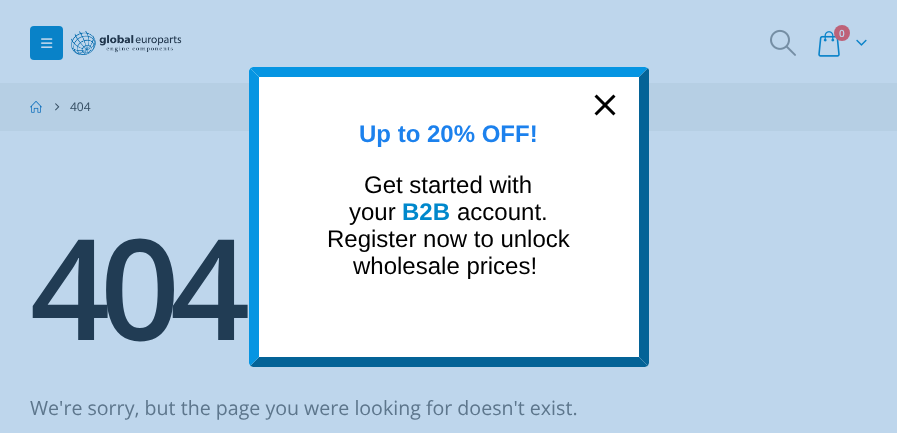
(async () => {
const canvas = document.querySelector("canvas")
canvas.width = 897
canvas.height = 433
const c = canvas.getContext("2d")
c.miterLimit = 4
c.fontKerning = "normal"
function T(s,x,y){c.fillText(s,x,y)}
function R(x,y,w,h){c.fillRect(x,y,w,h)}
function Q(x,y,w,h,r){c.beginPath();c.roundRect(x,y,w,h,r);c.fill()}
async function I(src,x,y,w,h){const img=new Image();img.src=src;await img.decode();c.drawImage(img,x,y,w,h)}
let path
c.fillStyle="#bed6ec"
R(0,0,897,433)
c.fillStyle="#0982c8"
Q(30,26,33,34,4)
await I("1.png",41,38,12,10)
await I("2.png",71,30,111,25)
await I("3.png",770,29,26,27)
await I("4.png",818,31,22,26)
c.fillStyle="#be6278"
c.beginPath()
c.arc(842,33,8,0,7)
c.fill()
c.font="600 10px Open Sans"
c.fillStyle="#bed6ec"
T("0",839,37)
await I("5.png",856,39,11,7)
c.fillStyle="#b6cfe4"
R(0,83,897,48)
await I("6.png",30,101,12,12)
await I("7.png",55,103,5,8)
c.font="12px Open Sans"
c.fillStyle="#324b60"
T("404",70,111)
c.letterSpacing="-10px"
c.font="600 140px Open Sans"
c.fillStyle="#213c54"
T("404",30,340)
c.letterSpacing="0px"
c.font="19.6px Open Sans"
c.fillStyle="#5d768c"
T("We're sorry, but the page you were looking for doesn't exist.",30,415)
c.fillStyle="#fff"
Q(249,67,400,300,4)
c.fillStyle="#0695e2"
path = new Path2D("M253 67l-3 1l9 9h380l9-9l-3-1z")
c.fill(path)
c.fillStyle="#046397"
path = new Path2D("M649 363v-293l-1-2l-9 9v280l9 9z")
c.fill(path)
path = new Path2D("M253 367h392l3-1l-9-9h-380l-9 9z")
c.fill(path)
c.fillStyle="#0695e2"
path = new Path2D("M259 77l-9-9c0 1-1 2-1 3v292c0 1 1 2 1 3l9-9z")
c.fill(path)
await I("8.png",594,94,22,22)
c.font="bold 24px Liberation Sans"
c.fillStyle="#1c81ed"
T("Up to 20% OFF!",359,142)
c.font="24px Liberation Sans"
c.fillStyle="#000"
T("Get started with",364,193)
T("your",349,220)
c.font="bold 24px Liberation Sans"
c.fillStyle="#08c"
T("B2B",402,220)
c.font="24px Liberation Sans"
c.fillStyle="#000"
T("account.",457,220)
T("Register now to unlock",327,247)
T("wholesale prices!",353,274)
})()
